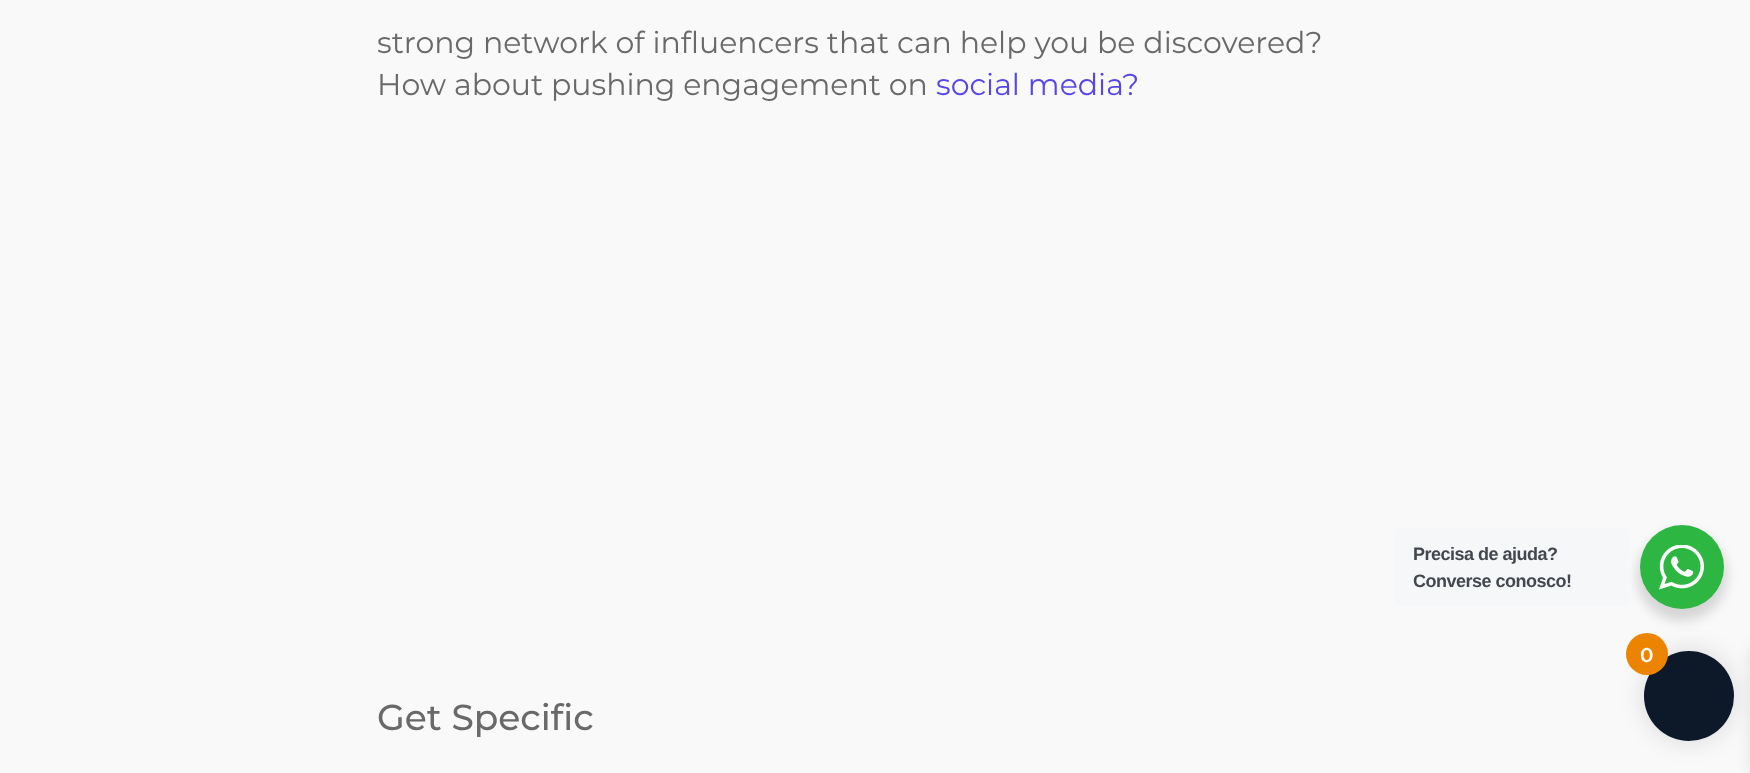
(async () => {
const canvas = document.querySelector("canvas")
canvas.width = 1750
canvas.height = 773
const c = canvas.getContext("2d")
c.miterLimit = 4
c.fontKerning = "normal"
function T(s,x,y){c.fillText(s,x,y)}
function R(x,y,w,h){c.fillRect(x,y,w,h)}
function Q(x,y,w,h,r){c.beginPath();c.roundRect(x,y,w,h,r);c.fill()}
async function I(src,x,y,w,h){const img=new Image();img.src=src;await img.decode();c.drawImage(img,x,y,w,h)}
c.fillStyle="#f9f9f9"
R(0,0,1750,773)
c.font="30px Montserrat"
c.fillStyle="#696969"
T("strong network of influencers that can help you be discovered?",377,53)
T("How about pushing engagement on",377,95)
c.fillStyle="#5747e4"
T("social media?",936,95)
c.font="500 36px Montserrat"
c.fillStyle="#696969"
T("Get Specific",377,730)
c.fillStyle="#0000001a"
c.filter="blur(11px)"
c.beginPath()
c.roundRect(1641,648,96,96,48)
c.fill()
c.filter="none"
c.filter="blur(7.5px)"
c.beginPath()
c.rect(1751,647,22,126)
c.fill()
c.filter="none"
c.fillStyle="#0d1929"
c.beginPath()
c.arc(1689,696,45,0,7)
c.fill()
c.fillStyle="#ed8400"
c.beginPath()
c.arc(1647,654,21,0,7)
c.fill()
c.fillStyle="#00000024"
c.filter="blur(6px)"
c.beginPath()
c.roundRect(1637,531,90,90,45)
c.fill()
c.filter="none"
c.fillStyle="#f5f7f9"
Q(1395,528,234,78,6)
c.letterSpacing="-0.5px"
c.font="bold 18px Liberation Sans"
c.fillStyle="#43474e"
T("Precisa de ajuda?",1413,560)
T("Converse conosco!",1413,587)
c.fillStyle="#2db742"
c.beginPath()
c.arc(1682,567,42,0,7)
c.fill()
await I("1.png",1659,545,45,45)
c.letterSpacing="0px"
c.font="600 20px Montserrat"
c.fillStyle="#f9f9f9"
T("0",1640,662)
})()
